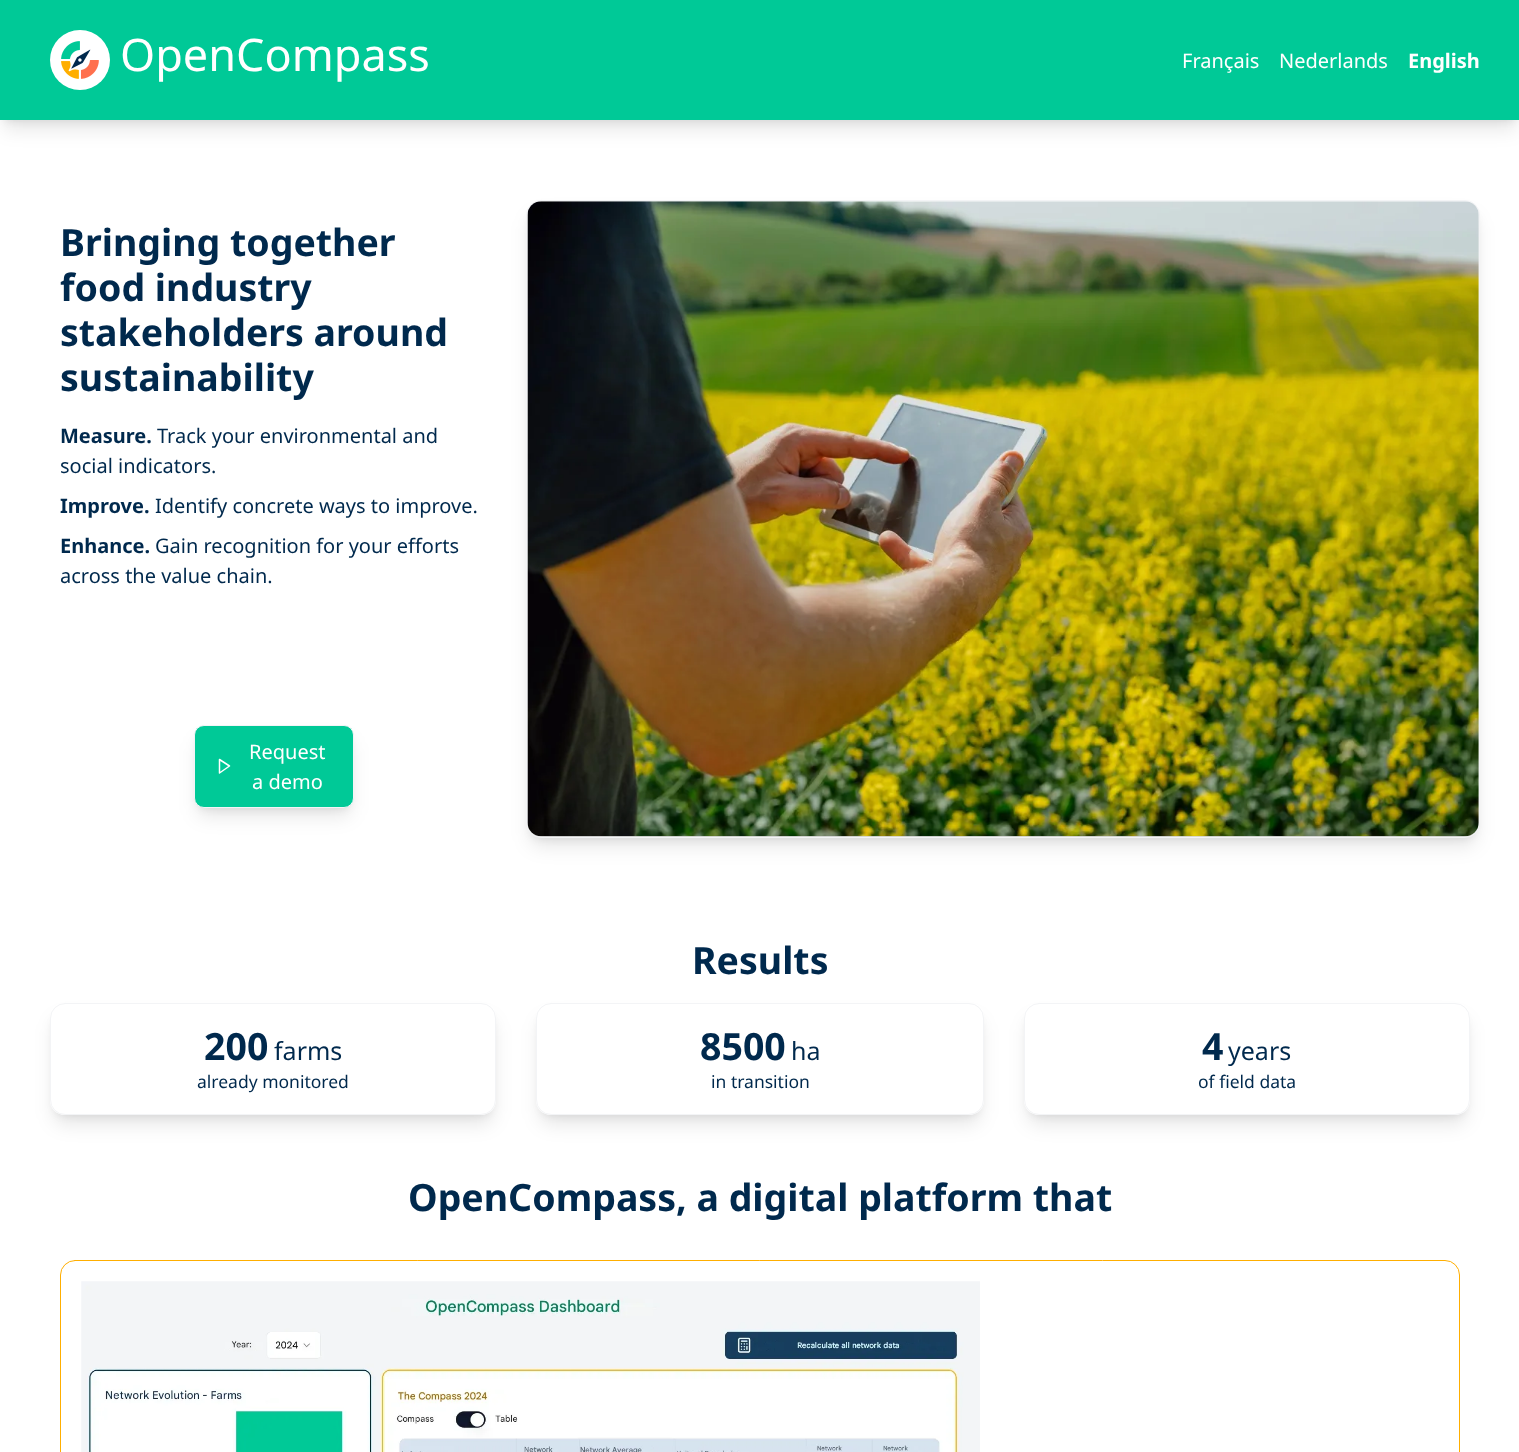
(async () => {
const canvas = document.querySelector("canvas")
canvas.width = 1519
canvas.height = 1452
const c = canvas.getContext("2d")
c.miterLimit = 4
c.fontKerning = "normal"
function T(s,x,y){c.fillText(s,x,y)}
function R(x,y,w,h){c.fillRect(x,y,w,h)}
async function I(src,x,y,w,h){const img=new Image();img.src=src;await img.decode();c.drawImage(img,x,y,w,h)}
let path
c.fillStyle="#fff"
R(0,0,1519,1452)
c.fillStyle="#0000001a"
c.filter="blur(4px)"
c.beginPath()
c.rect(5,10,1510,110)
c.fill()
c.filter="none"
c.filter="blur(9.5px)"
c.beginPath()
c.rect(4,16,1512,113)
c.fill()
c.filter="none"
c.fillStyle="#00c997"
R(0,0,1519,120)
c.fillStyle="#fff"
c.beginPath()
c.arc(80,60,30,0,7)
c.fill()
await I("1.png",61,41,38,38)
c.font="45px Noto Sans"
T("OpenCompass",120,71)
c.font="20px Noto Sans"
T("Français",1182,68)
T("Nederlands",1279,68)
c.font="bold 20px Noto Sans"
T("English",1408,68)
c.font="bold 37.5px Noto Sans"
c.fillStyle="#00294d"
T("Bringing together",60,256)
T("food industry",60,301)
T("stakeholders around",60,346)
T("sustainability",60,391)
c.font="bold 20px Noto Sans"
T("Measure.",60,443)
c.font="20px Noto Sans"
T("Track your environmental and",157,443)
T("social indicators.",60,473)
c.font="bold 20px Noto Sans"
T("Improve.",60,513)
c.font="20px Noto Sans"
T("Identify concrete ways to improve.",155,513)
c.font="bold 20px Noto Sans"
T("Enhance.",60,553)
c.font="20px Noto Sans"
T("Gain recognition for your efforts",155,553)
T("across the value chain.",60,583)
c.fillStyle="#0000001a"
c.filter="blur(4px)"
c.beginPath()
c.roundRect(199,735,150,73,5)
c.fill()
c.filter="none"
c.filter="blur(9.5px)"
c.beginPath()
c.roundRect(198,741,152,75,6)
c.fill()
c.filter="none"
c.fillStyle="#00c997"
c.beginPath()
c.roundRect(194.5,725.5,159,82,9.5)
c.fill()
c.strokeStyle="#f3f4f6"
c.stroke()
c.fillStyle="#fff"
T("Request",249,759)
path = new Path2D("M219.5 759.5l10 6.5l-10 7z")
c.strokeStyle="#fff"
c.lineWidth=1.5
c.lineCap="round"
c.lineJoin="round"
c.stroke(path)
T("a demo",252,789)
c.fillStyle="#0000001a"
c.filter="blur(4px)"
c.beginPath()
c.roundRect(531,210,944,628,10)
c.fill()
c.filter="none"
c.filter="blur(9.5px)"
c.beginPath()
c.roundRect(530,216,946,630,11)
c.fill()
c.filter="none"
c.beginPath()
c.roundRect(526.5,200.5,953,637,14.5)
c.strokeStyle="#f3f4f6"
c.lineWidth=1
c.lineJoin="miter"
c.stroke()
await I("2.png",527,201,952,636)
c.font="bold 37.5px Noto Sans"
c.fillStyle="#00294d"
T("Results",692,974)
c.save()
path = new Path2D("M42 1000h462v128h-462zm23 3h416c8.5 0 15 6.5 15 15v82c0 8.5-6.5 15-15 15h-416c-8.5 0-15-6.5-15-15v-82c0-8.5 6.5-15 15-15z")
c.clip(path,"evenodd")
c.fillStyle="#0000001a"
c.filter="blur(4px)"
c.beginPath()
c.roundRect(55,1013,436,102,10)
c.fill()
c.filter="none"
c.restore()
c.save()
path = new Path2D("M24 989h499v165h-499zm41 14h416c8.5 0 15 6.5 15 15v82c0 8.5-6.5 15-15 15h-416c-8.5 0-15-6.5-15-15v-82c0-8.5 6.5-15 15-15z")
c.clip(path,"evenodd")
c.fillStyle="#0000001a"
c.filter="blur(9.5px)"
c.beginPath()
c.roundRect(54,1019,439,105,11)
c.fill()
c.filter="none"
c.restore()
c.beginPath()
c.roundRect(50.5,1003.5,445,111,14.5)
c.stroke()
T("200",204,1060)
c.font="25px Noto Sans"
T("farms",274,1060)
c.font="17.5px Noto Sans"
T("already monitored",197,1088)
c.save()
path = new Path2D("M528 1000h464v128h-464zm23 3h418c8.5 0 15 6.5 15 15v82c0 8.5-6.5 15-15 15h-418c-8.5 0-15-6.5-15-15v-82c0-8.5 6.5-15 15-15z")
c.clip(path,"evenodd")
c.fillStyle="#0000001a"
c.filter="blur(4px)"
c.beginPath()
c.roundRect(541,1013,438,102,10)
c.fill()
c.filter="none"
c.restore()
c.save()
path = new Path2D("M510 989h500v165h-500zm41 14h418c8.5 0 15 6.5 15 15v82c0 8.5-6.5 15-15 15h-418c-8.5 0-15-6.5-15-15v-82c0-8.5 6.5-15 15-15z")
c.clip(path,"evenodd")
c.fillStyle="#0000001a"
c.filter="blur(9.5px)"
c.beginPath()
c.roundRect(540,1019,440,105,11)
c.fill()
c.filter="none"
c.restore()
c.beginPath()
c.roundRect(536.5,1003.5,447,111,14.5)
c.stroke()
c.font="bold 37.5px Noto Sans"
T("8500",700,1060)
c.font="25px Noto Sans"
T("ha",791,1060)
c.font="17.5px Noto Sans"
T("in transition",711,1088)
c.save()
path = new Path2D("M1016 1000h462v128h-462zm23 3h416c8.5 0 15 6.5 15 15v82c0 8.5-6.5 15-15 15h-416c-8.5 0-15-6.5-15-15v-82c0-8.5 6.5-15 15-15z")
c.clip(path,"evenodd")
c.fillStyle="#0000001a"
c.filter="blur(4px)"
c.beginPath()
c.roundRect(1029,1013,436,102,10)
c.fill()
c.filter="none"
c.restore()
c.save()
path = new Path2D("M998 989h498v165h-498zm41 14h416c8.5 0 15 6.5 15 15v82c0 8.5-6.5 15-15 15h-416c-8.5 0-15-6.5-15-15v-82c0-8.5 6.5-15 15-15z")
c.clip(path,"evenodd")
c.fillStyle="#0000001a"
c.filter="blur(9.5px)"
c.beginPath()
c.roundRect(1028,1019,438,105,11)
c.fill()
c.filter="none"
c.restore()
c.beginPath()
c.roundRect(1024.5,1003.5,445,111,14.5)
c.stroke()
c.font="bold 37.5px Noto Sans"
T("4",1202,1060)
c.font="25px Noto Sans"
T("years",1228,1060)
c.font="17.5px Noto Sans"
T("of field data",1198,1088)
c.font="bold 37.5px Noto Sans"
T("OpenCompass, a digital platform that",408,1211)
c.beginPath()
c.roundRect(60.5,1260.5,1399,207,14.5)
c.strokeStyle="#ffae00"
c.stroke()
await I("3.png",81,1281,899,171)
})()
